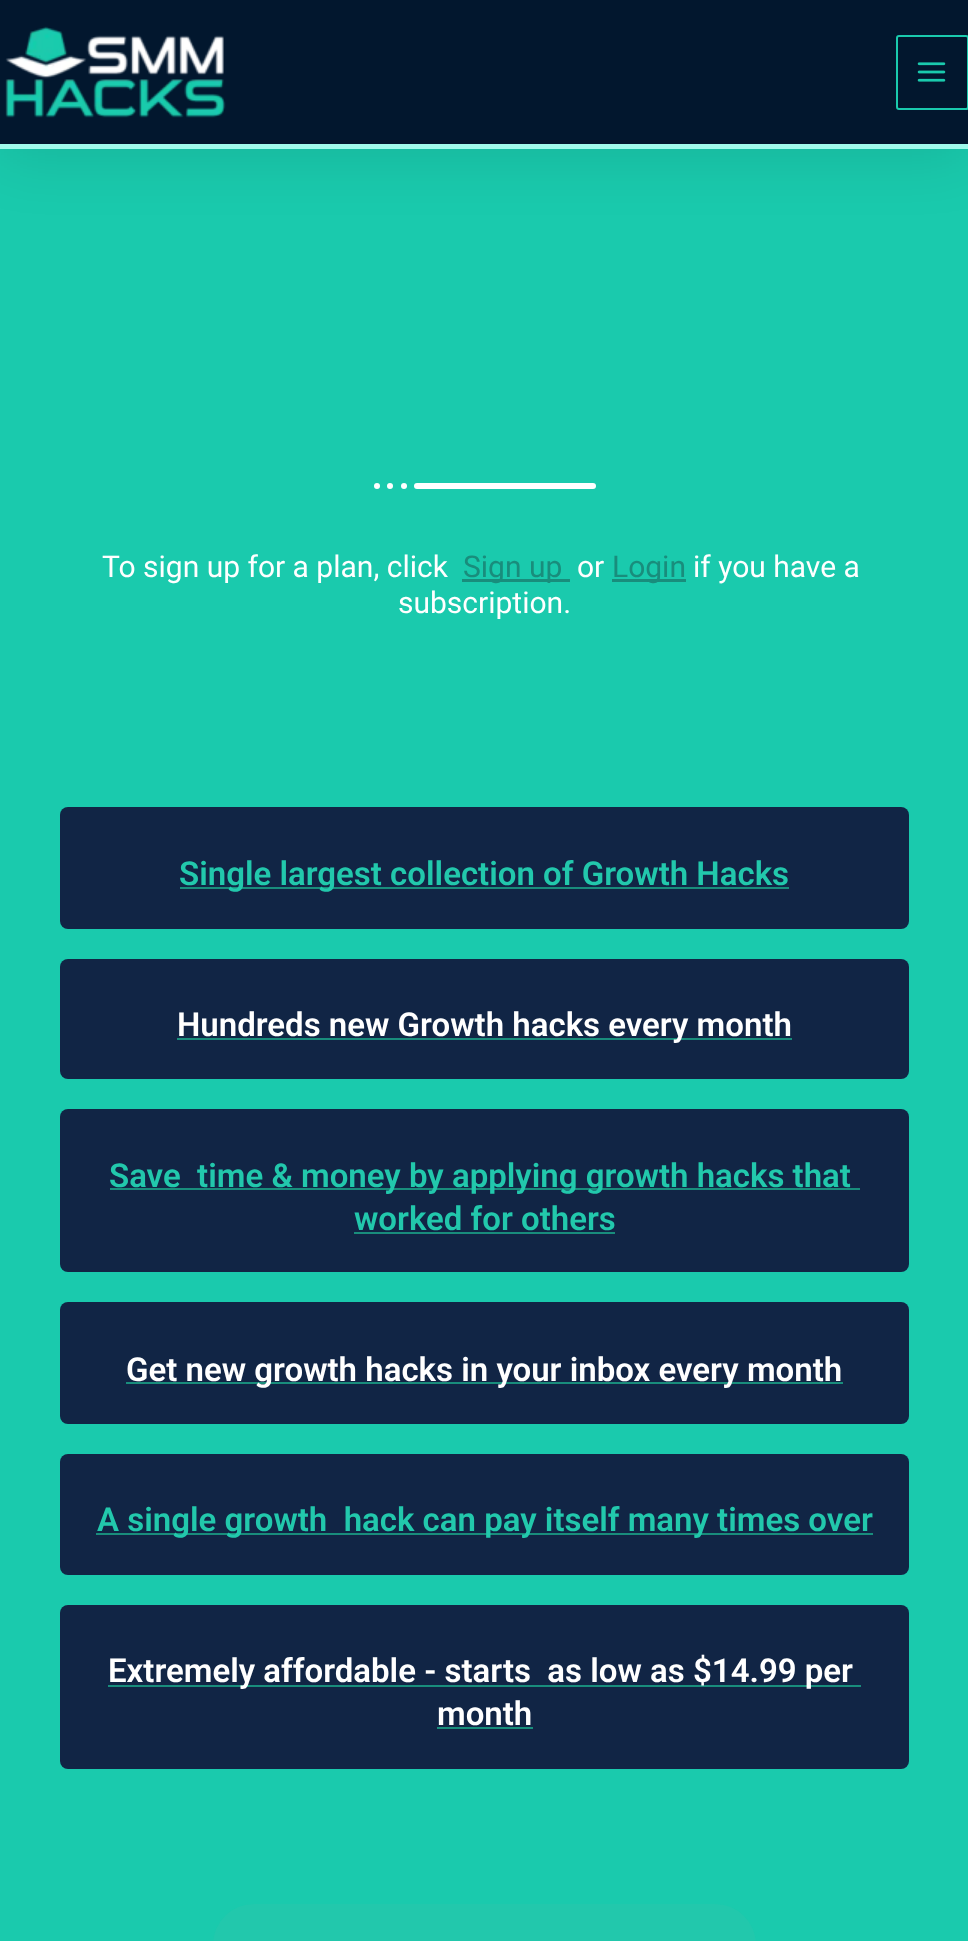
(async () => {
const canvas = document.querySelector("canvas")
canvas.width = 968
canvas.height = 1941
const c = canvas.getContext("2d")
c.miterLimit = 4
c.fontKerning = "normal"
function T(s,x,y){c.fillText(s,x,y)}
function R(x,y,w,h){c.fillRect(x,y,w,h)}
function Q(x,y,w,h,r){c.beginPath();c.roundRect(x,y,w,h,r);c.fill()}
async function I(src,x,y,w,h){const img=new Image();img.src=src;await img.decode();c.drawImage(img,x,y,w,h)}
c.fillStyle="#1acaad"
R(0,0,968,1941)
c.fillStyle="#0000001a"
c.filter="blur(30px)"
c.beginPath()
c.rect(0,9,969,149)
c.fill()
c.filter="none"
c.fillStyle="#02172e"
R(0,0,968,144)
c.fillStyle="#a0faeb"
R(0,144,968,5)
await I("1.png",5,26,221,92)
c.beginPath()
c.roundRect(897,36,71,73,2)
c.strokeStyle="#1acaad"
c.lineWidth=2
c.stroke()
await I("2.png",917,62,29,20)
c.fillStyle="#fff"
Q(414,483,182,6,3)
c.beginPath()
c.arc(404,486,3,0,7)
c.fill()
c.beginPath()
c.arc(390,486,3,0,7)
c.fill()
c.beginPath()
c.arc(377,486,3,0,7)
c.fill()
c.font="30px Roboto"
T("To sign up for a plan, click",102,577)
c.fillStyle="#198d7c"
R(462,579,108,3)
T("Sign up",463,577)
c.fillStyle="#fff"
T("or",577,577)
c.fillStyle="#198d7c"
R(612,579,74,3)
T("Login",612,577)
c.fillStyle="#fff"
T("if you have a",693,577)
T("subscription.",398,613)
c.fillStyle="#112545"
Q(60,807,849,122,8)
c.fillStyle="#198d7c"
R(180,887,609,2)
c.font="600 33px Roboto"
c.fillStyle="#22c8ac"
T("Single largest collection of Growth Hacks",179,885)
c.fillStyle="#112545"
Q(60,959,849,120,8)
c.fillStyle="#198d7c"
R(177,1038,615,2)
c.fillStyle="#fff"
T("Hundreds new Growth hacks every month",177,1036)
c.fillStyle="#112545"
Q(60,1109,849,163,8)
c.fillStyle="#198d7c"
R(110,1188,750,2)
c.fillStyle="#22c8ac"
T("Save  time & money by applying growth hacks that",109,1187)
T("worked for others",354,1230)
c.fillStyle="#198d7c"
R(354,1232,261,2)
c.fillStyle="#112545"
Q(60,1302,849,122,8)
c.fillStyle="#198d7c"
R(126,1382,717,2)
c.fillStyle="#fff"
T("Get new growth hacks in your inbox every month",126,1381)
c.fillStyle="#112545"
Q(60,1454,849,121,8)
c.fillStyle="#198d7c"
R(96,1533,777,2)
c.fillStyle="#22c8ac"
T("A single growth  hack can pay itself many times over",97,1531)
c.fillStyle="#112545"
Q(60,1605,849,164,8)
c.fillStyle="#198d7c"
R(108,1685,753,2)
c.fillStyle="#fff"
T("Extremely affordable - starts  as low as $14.99 per",108,1682)
T("month",437,1725)
c.fillStyle="#198d7c"
R(437,1727,96,2)
c.fillStyle="#22c8ac"
Q(213,1904,543,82,45)
})()
